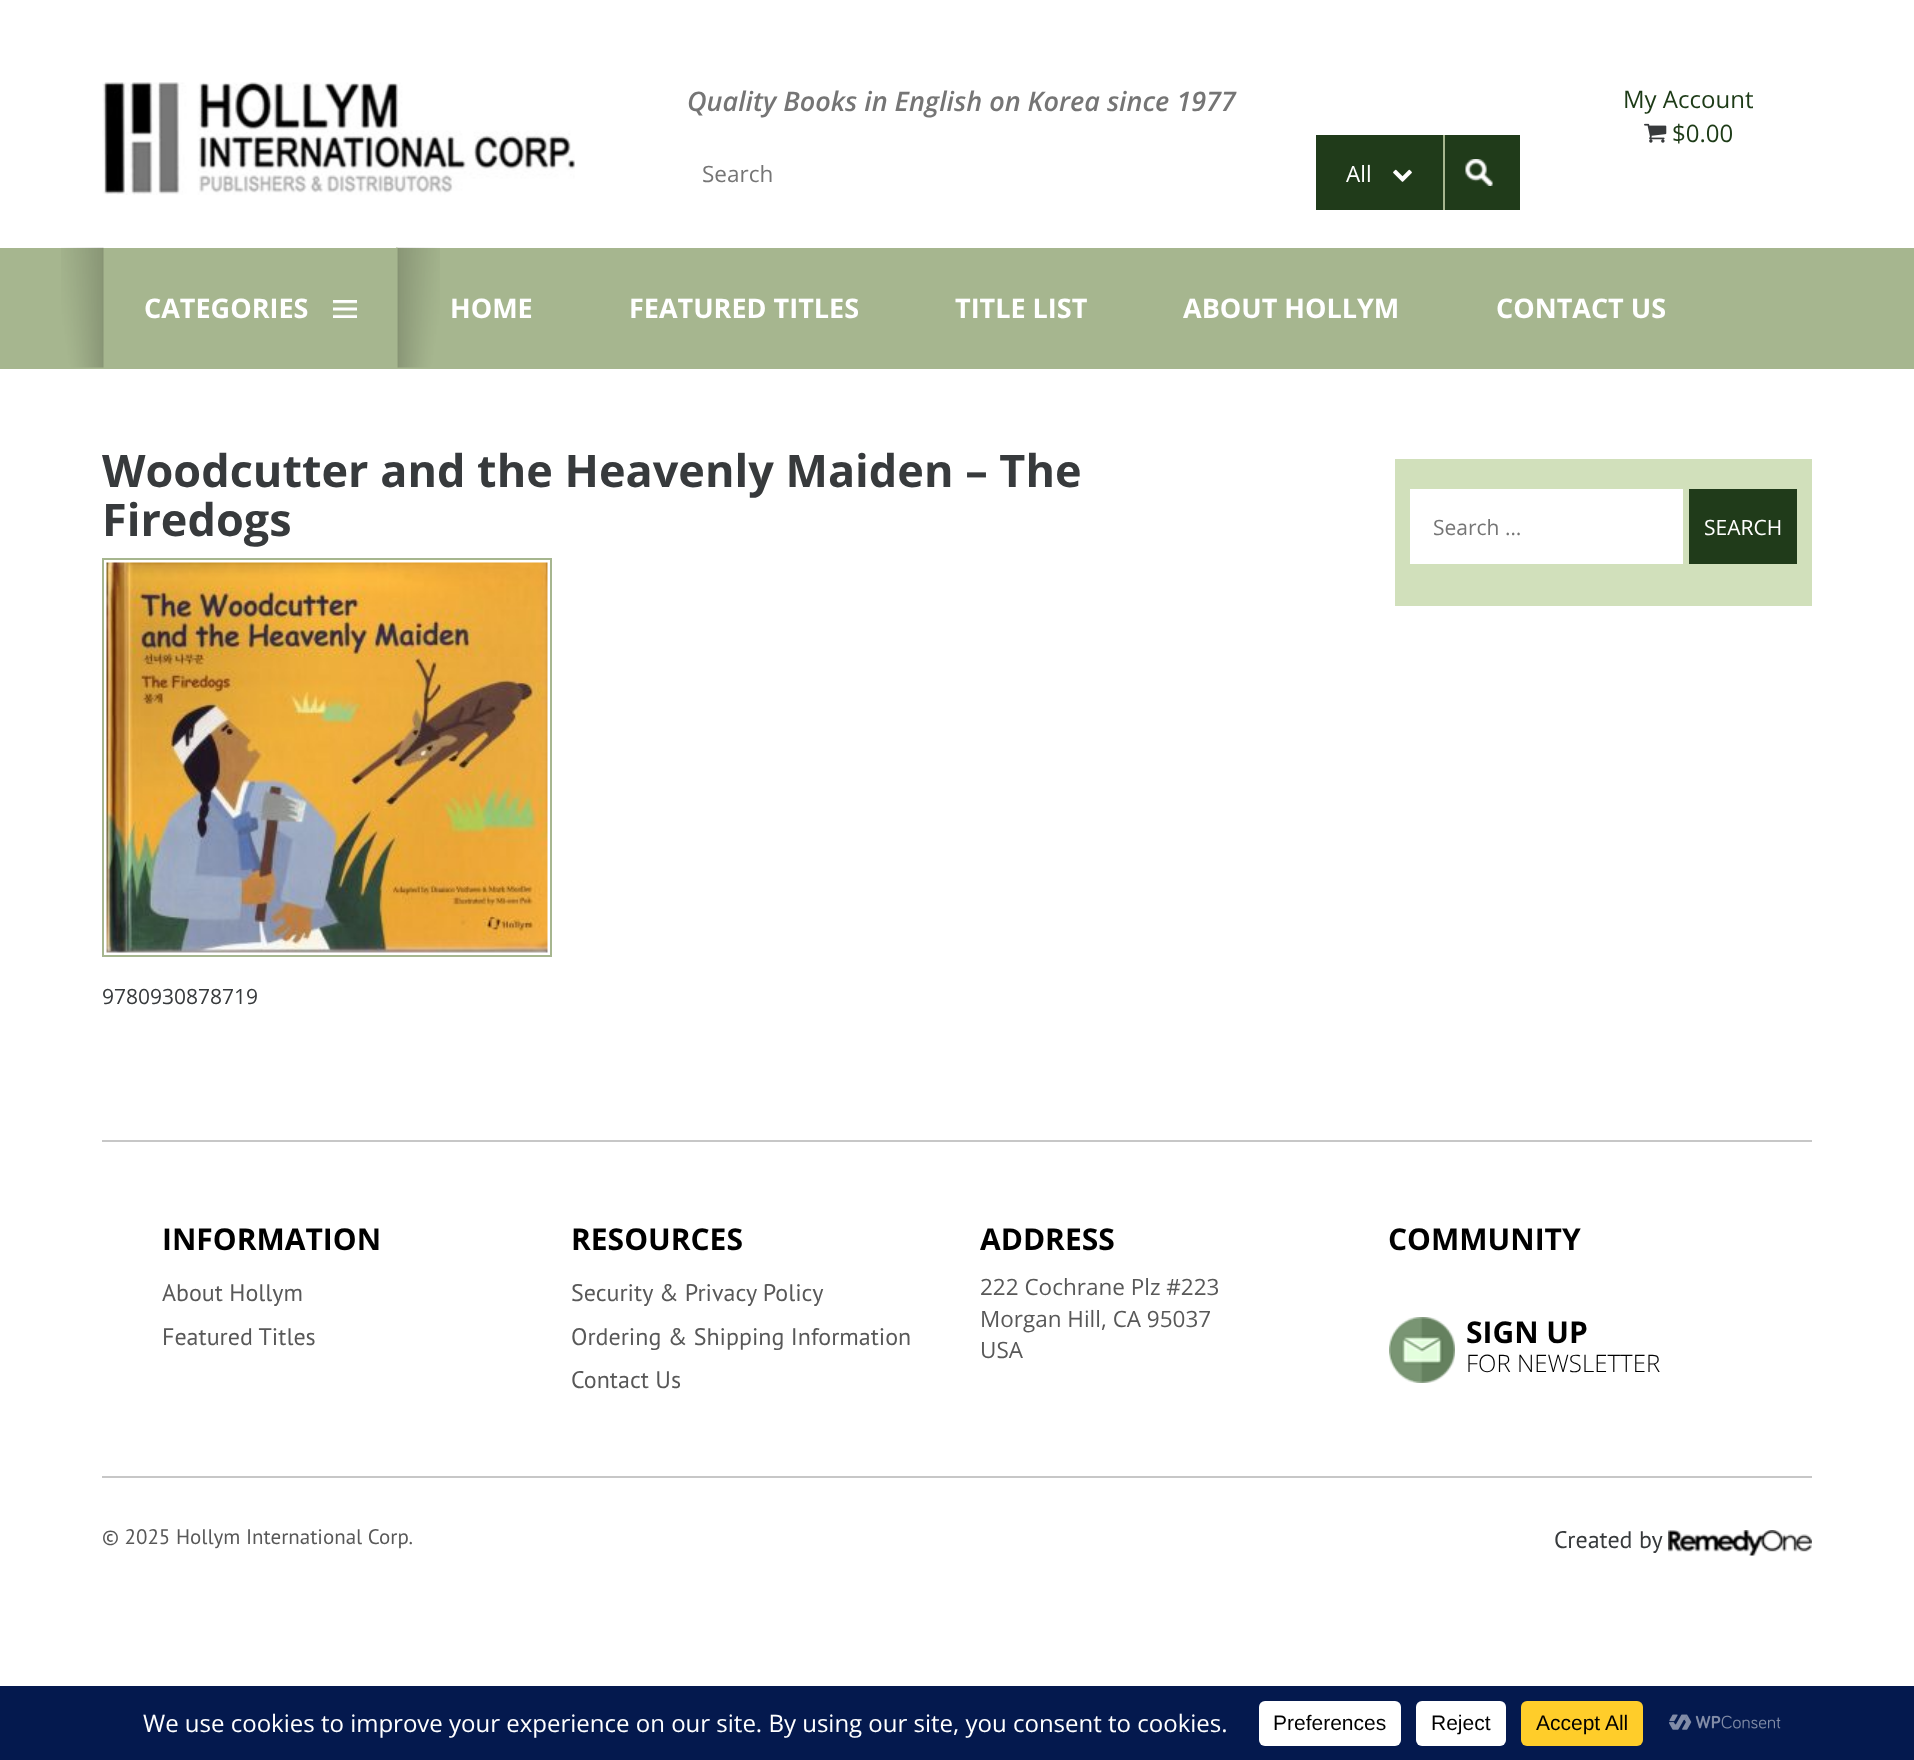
(async () => {
const canvas = document.querySelector("canvas")
canvas.width = 1914
canvas.height = 1760
const c = canvas.getContext("2d")
c.miterLimit = 4
c.fontKerning = "normal"
function T(s,x,y){c.fillText(s,x,y)}
function R(x,y,w,h){c.fillRect(x,y,w,h)}
function Q(x,y,w,h,r){c.beginPath();c.roundRect(x,y,w,h,r);c.fill()}
async function I(src,x,y,w,h){const img=new Image();img.src=src;await img.decode();c.drawImage(img,x,y,w,h)}
c.fillStyle="#fff"
R(0,0,1914,1760)
await I("1.png",102,82,473,113)
c.font="italic 600 27px Open Sans"
c.fillStyle="#757575"
T("Quality Books in English on Korea since 1977",687,111)
c.font="22.5px Open Sans"
T("Search",702,182)
c.fillStyle="#203b1a"
R(1316,135,127,75)
c.fillStyle="#a6b68f"
R(1443,135,2,75)
c.fillStyle="#fff"
T("All",1346,182)
await I("2.png",1393,169,19,13)
c.fillStyle="#203b1a"
R(1445,135,75,75)
await I("3.png",1465,159,28,27)
c.font="24px Open Sans"
c.fillStyle="#1d3b17"
T("My Account",1623,108)
await I("4.png",1644,123,23,20)
T("$0.00",1672,142)
c.fillStyle="#a6b68f"
R(0,248,1914,121)
await I("5.png",333,300,24,18)
await I("6.png",61,247,43,121)
c.font="bold 27px Open Sans"
c.fillStyle="#fff"
T("CATEGORIES",144,318)
await I("7.png",396,247,44,121)
T("HOME",450,318)
T("FEATURED TITLES",629,318)
T("TITLE LIST",955,318)
T("ABOUT HOLLYM",1183,318)
T("CONTACT US",1496,318)
c.font="bold 45px Open Sans"
c.fillStyle="#373a3c"
T("Woodcutter and the Heavenly Maiden – The",102,487)
T("Firedogs",102,536)
c.strokeStyle="#a6b68f"
c.lineWidth=2
c.strokeRect(103,559,448,397)
await I("8.png",106,562,442,391)
c.font="21px Open Sans"
T("9780930878719",102,1004)
c.fillStyle="#d1e0bb"
R(1395,459,417,147)
c.fillStyle="#fff"
R(1410,489,273,75)
c.fillStyle="#757575"
T("Search …",1433,535)
c.fillStyle="#203b1a"
R(1689,489,108,75)
c.fillStyle="#fff"
T("SEARCH",1704,535)
c.fillStyle="#c7c7c7"
R(102,1140,1710,2)
R(102,1476,1710,2)
c.font="bold 30px Open Sans"
c.fillStyle="#000"
T("INFORMATION",162,1250)
c.font="24px PT Sans"
c.fillStyle="#585858"
T("About Hollym",162,1301)
T("Featured Titles",162,1345)
c.font="bold 30px Open Sans"
c.fillStyle="#000"
T("RESOURCES",571,1250)
c.font="24px PT Sans"
c.fillStyle="#585858"
T("Security & Privacy Policy",571,1301)
T("Ordering & Shipping Information",571,1345)
T("Contact Us",571,1388)
c.font="bold 30px Open Sans"
c.fillStyle="#000"
T("ADDRESS",980,1250)
c.font="22.5px Open Sans"
c.fillStyle="#585858"
T("222 Cochrane Plz #223",980,1295)
T("Morgan Hill, CA 95037",980,1327)
T("USA",980,1358)
c.font="bold 30px Open Sans"
c.fillStyle="#000"
T("COMMUNITY",1388,1250)
await I("9.png",1389,1317,66,66)
T("SIGN UP",1466,1343)
c.font="300 24px Open Sans"
T("FOR NEWSLETTER",1466,1372)
c.font="21px PT Sans"
c.fillStyle="#585858"
T("© 2025 Hollym International Corp.",102,1544)
c.font="24px PT Sans"
c.fillStyle="#373a3c"
T("Created by",1554,1548)
await I("10.png",1668,1530,144,26)
c.fillStyle="#04194e"
R(0,1686,1914,74)
c.font="24px Open Sans"
c.fillStyle="#fff"
T("We use cookies to improve your experience on our site. By using our site, you consent to cookies.",143,1732)
Q(1259,1701,142,45,6)
c.font="21px Liberation Sans"
c.fillStyle="#000"
T("Preferences",1273,1730)
c.fillStyle="#fff"
Q(1416,1701,90,45,6)
c.fillStyle="#000"
T("Reject",1431,1730)
c.fillStyle="#ffcd2a"
Q(1521,1701,122,45,6)
c.fillStyle="#000"
T("Accept All",1536,1730)
await I("11.png",1669,1714,112,16)
})()
